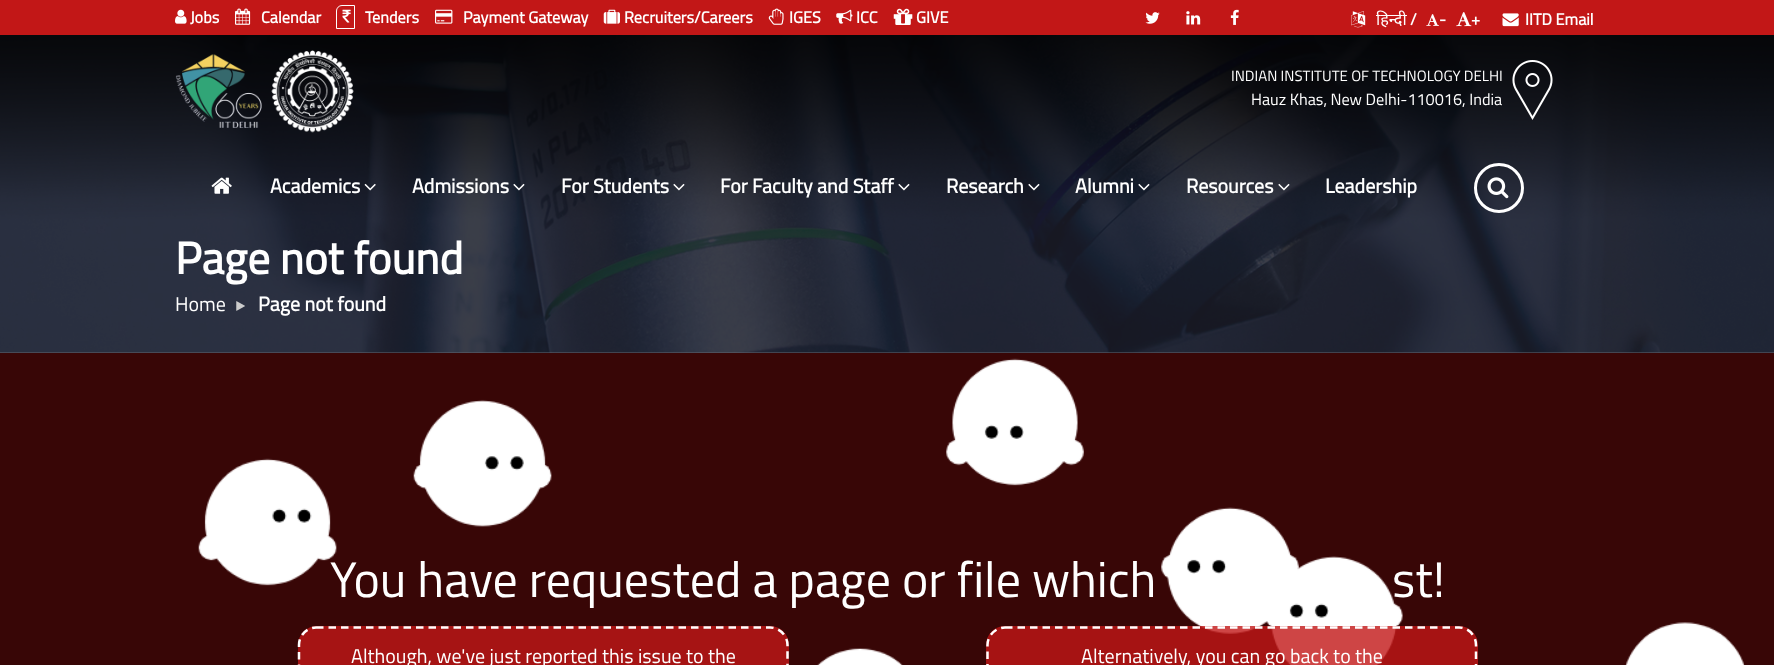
(async () => {
const canvas = document.querySelector("canvas")
canvas.width = 1774
canvas.height = 665
const c = canvas.getContext("2d")
c.miterLimit = 4
c.fontKerning = "normal"
function T(s,x,y){c.fillText(s,x,y)}
function R(x,y,w,h){c.fillRect(x,y,w,h)}
function Q(x,y,w,h,r){c.beginPath();c.roundRect(x,y,w,h,r);c.fill()}
async function I(src,x,y,w,h){const img=new Image();img.src=src;await img.decode();c.drawImage(img,x,y,w,h)}
let path
c.fillStyle="#64656f"
R(0,0,1774,665)
c.fillStyle="#c21717"
R(0,0,1774,35)
await I("1.png",175,9,12,15)
c.font="bold 16.25px Titillium Web"
c.fillStyle="#fff"
T("Jobs",190,23)
await I("2.png",235,8,16,17)
T("Calendar",261,23)
c.beginPath()
c.roundRect(336.5,5.5,18,23,[5.5,0,0,0])
c.strokeStyle="#fff"
c.stroke()
await I("3.png",342,9,9,14)
T("Tenders",365,23)
await I("4.png",435,9,18,15)
T("Payment Gateway",463,23)
await I("5.png",603,9,17,15)
T("Recruiters/Careers",624,23)
await I("6.png",768,8,16,17)
T("IGES",789,23)
await I("7.png",836,9,17,15)
T("ICC",856,23)
await I("8.png",893,8,20,17)
T("GIVE",916,23)
await I("9.png",1145,12,15,12)
await I("10.png",1186,11,15,14)
await I("11.png",1230,9,9,16)
await I("12.png",1351,11,15,17)
c.font="16.25px Noto Sans"
T("हिन्दी",1376,25)
c.font="bold 16.25px Titillium Web"
T("/",1410,25)
await I("13.png",1426,14,13,12)
T("-",1439,25)
await I("14.png",1456,12,16,15)
T("+",1471,25)
await I("15.png",1502,13,17,14)
T("IITD Email",1525,25)
await I("28.png",0,35,1774,318)
await I("16.png",175,54,87,74)
await I("17.png",271,50,83,83)
c.font="15px Titillium Web"
T("INDIAN INSTITUTE OF TECHNOLOGY DELHI",1231,81)
await I("18.png",1512,60,41,60)
c.font="16.25px Titillium Web"
T("Hauz Khas, New Delhi-110016, India",1251,105)
await I("19.png",211,177,21,17)
c.font="bold 20px Titillium Web"
T("Academics",270,193)
await I("20.png",364,183,12,8)
T("Admissions",412,193)
await I("21.png",513,183,12,8)
T("For Students",561,193)
await I("22.png",673,183,12,8)
T("For Faculty and Staff",720,193)
await I("23.png",898,183,12,8)
T("Research",946,193)
await I("24.png",1028,183,12,8)
T("Alumni",1075,193)
await I("25.png",1138,183,12,8)
T("Resources",1186,193)
await I("26.png",1278,183,12,8)
T("Leadership",1325,193)
c.beginPath()
c.arc(1499,188,23.5,0,7)
c.lineWidth=3
c.stroke()
await I("27.png",1487,177,22,22)
c.font="bold 45px Titillium Web"
T("Page not found",175,274)
c.font="20px Titillium Web"
T("Home",175,311)
await I("29.png",236,301,9,10)
c.font="bold 20px Titillium Web"
T("Page not found",258,311)
c.fillStyle="#380606"
R(0,353,1774,312)
await I("30.png",198,358,1547,307)
c.font="50px Titillium Web"
c.fillStyle="#fff"
T("You have requested a page or file which",330,597)
T("st!",1392,597)
c.fillStyle="#a61414"
Q(298,626,491,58,19)
path = new Path2D("M316 627.5h454c9.5 0 17.5 8 17.5 17.5v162.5c0 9.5-8 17.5-17.5 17.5h-454c-9.5 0-17-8-17-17.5v-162.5c0-9.5 7.5-17.5 17-17.5z")
c.lineWidth=2.5
c.setLineDash([7.5,5])
c.stroke(path)
c.font="20px Titillium Web"
c.fillStyle="#fff"
T("Although, we've just reported this issue to the",351,663)
c.fillStyle="#c21717cc"
Q(986,626,492,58,19)
path = new Path2D("M1005 627.5h454c9.5 0 17 8 17 17.5v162.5c0 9.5-7.5 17.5-17 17.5h-454c-9.5 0-17.5-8-17.5-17.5v-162.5c0-9.5 8-17.5 17.5-17.5z")
c.stroke(path)
c.fillStyle="#fff"
T("Alternatively, you can go back to the",1081,663)
})()
